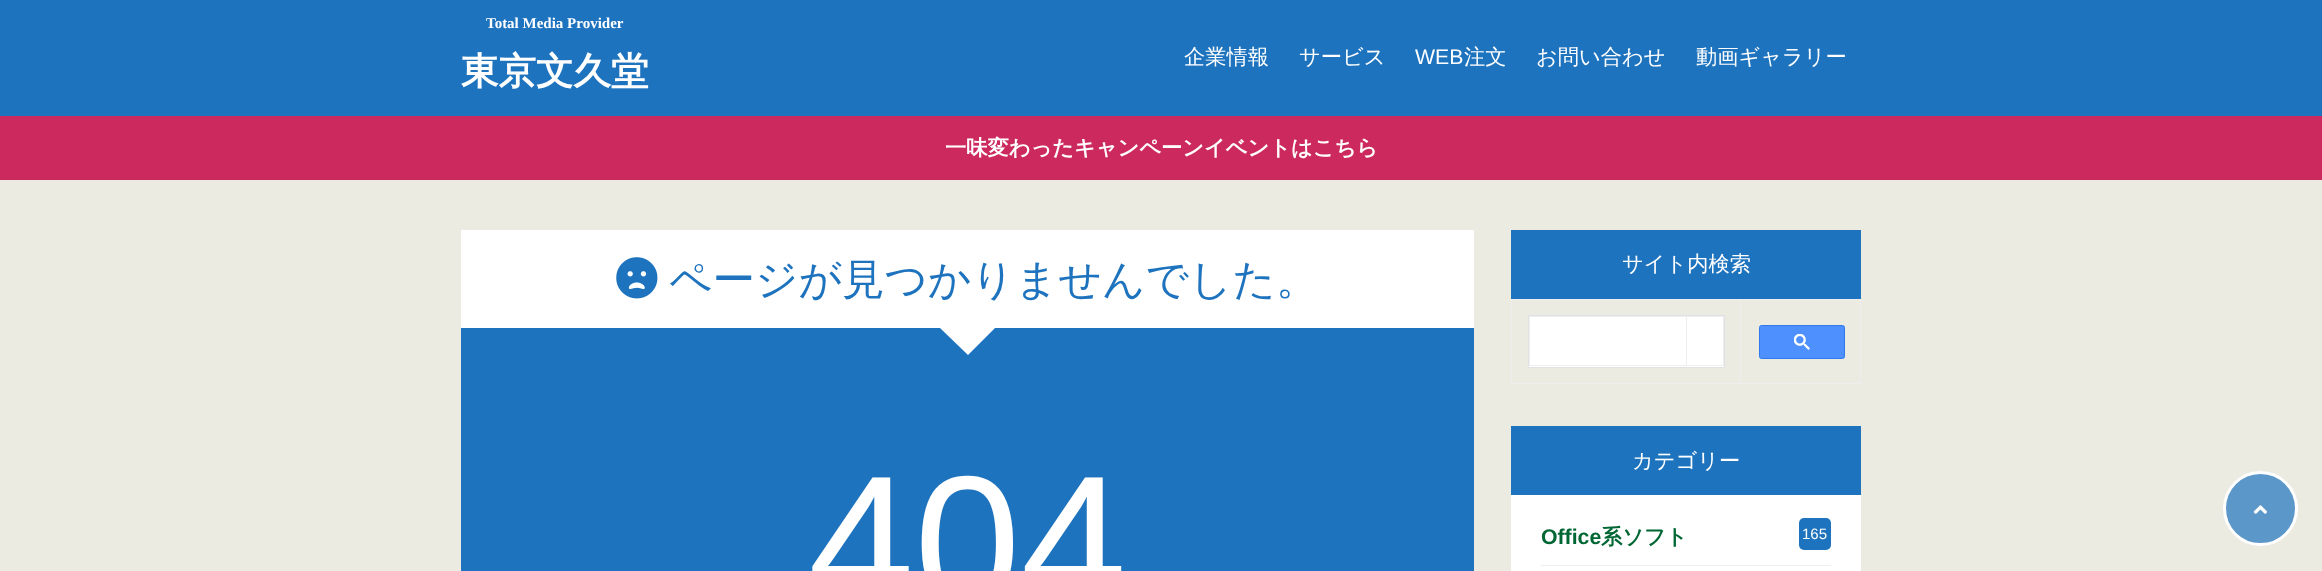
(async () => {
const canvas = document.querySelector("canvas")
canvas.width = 2322
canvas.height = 571
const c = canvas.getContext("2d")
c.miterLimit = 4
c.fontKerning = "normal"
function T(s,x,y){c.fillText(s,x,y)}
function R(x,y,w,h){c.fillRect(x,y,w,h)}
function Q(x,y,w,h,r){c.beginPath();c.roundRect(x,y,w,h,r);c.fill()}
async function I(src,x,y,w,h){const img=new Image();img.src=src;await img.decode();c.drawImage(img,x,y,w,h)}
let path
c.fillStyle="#ecebe1"
R(0,0,2322,571)
c.fillStyle="#1e73be"
R(0,0,2322,116)
c.font="bold 15px Liberation Serif"
c.fillStyle="#fff"
T("Total Media Provider",486,28)
c.font="bold 37.5px WenQuanYi Zen Hei"
T("東京文久堂",461,84)
c.font="500 21.25px WenQuanYi Zen Hei"
T("企業情報",1184,64)
T("サービス",1299,64)
c.font="21.25px Liberation Sans"
T("WEB",1415,64)
c.font="500 21.25px WenQuanYi Zen Hei"
T("注文",1464,64)
T("お問い合わせ",1536,64)
T("動画ギャラリー",1696,64)
c.fillStyle="#cc295f"
R(0,116,2322,64)
c.font="bold 21.25px WenQuanYi Zen Hei"
c.fillStyle="#fff"
T("一味変わったキャンペーンイベントはこちら",945,155)
R(461,230,1013,98)
await I("1.png",616,257,42,42)
c.font="500 42.5px WenQuanYi Zen Hei"
c.fillStyle="#1e73be"
T("ページが見つかりませんでした。",669,294)
R(461,328,1013,243)
c.fillStyle="#fff"
path = new Path2D("M940 328h55l-27 27z")
c.fill(path)
c.font="191px Liberation Sans"
T("404",808,609)
c.fillStyle="#1e73be"
R(1511,230,350,69)
c.font="500 21.25px WenQuanYi Zen Hei"
c.fillStyle="#fff"
T("サイト内検索",1622,271)
c.fillStyle="#eee"
R(1740,299,121,1)
R(1860,299,1,85)
R(1740,383,121,1)
R(1740,299,1,85)
R(1511,299,230,1)
R(1511,383,230,1)
R(1511,299,1,85)
c.fillStyle="#fff"
R(1529,317,195,50)
c.strokeStyle="#dfe1e5"
c.strokeRect(1528.5,315.5,196,52)
c.fillStyle="#eee"
R(1529,316,195,1)
R(1723,316,1,50)
R(1529,365,195,1)
R(1529,316,1,50)
R(1686,316,1,50)
c.fillStyle="#4d90fe"
c.beginPath()
c.roundRect(1759.5,325.5,85,33,2)
c.fill()
c.strokeStyle="#3079ed"
c.stroke()
await I("2.png",1794,334,16,16)
c.fillStyle="#1e73be"
R(1511,426,350,69)
c.fillStyle="#fff"
T("カテゴリー",1632,468)
R(1511,495,350,76)
c.fillStyle="#eee"
R(1541,565,290,1)
c.font="bold 21.25px Liberation Sans"
c.fillStyle="#063"
T("Office",1541,544)
c.font="bold 21.25px WenQuanYi Zen Hei"
T("系ソフト",1601,544)
c.fillStyle="#1e73be"
Q(1799,518,32,32,5)
c.font="15px Liberation Sans"
c.fillStyle="#fff"
T("165",1802,539)
c.fillStyle="#5c97c9"
c.beginPath()
c.arc(2260.5,508.5,36,0,7)
c.fill()
c.strokeStyle="#fff"
c.lineWidth=3
c.stroke()
await I("3.png",2253,505,14,9)
})()
